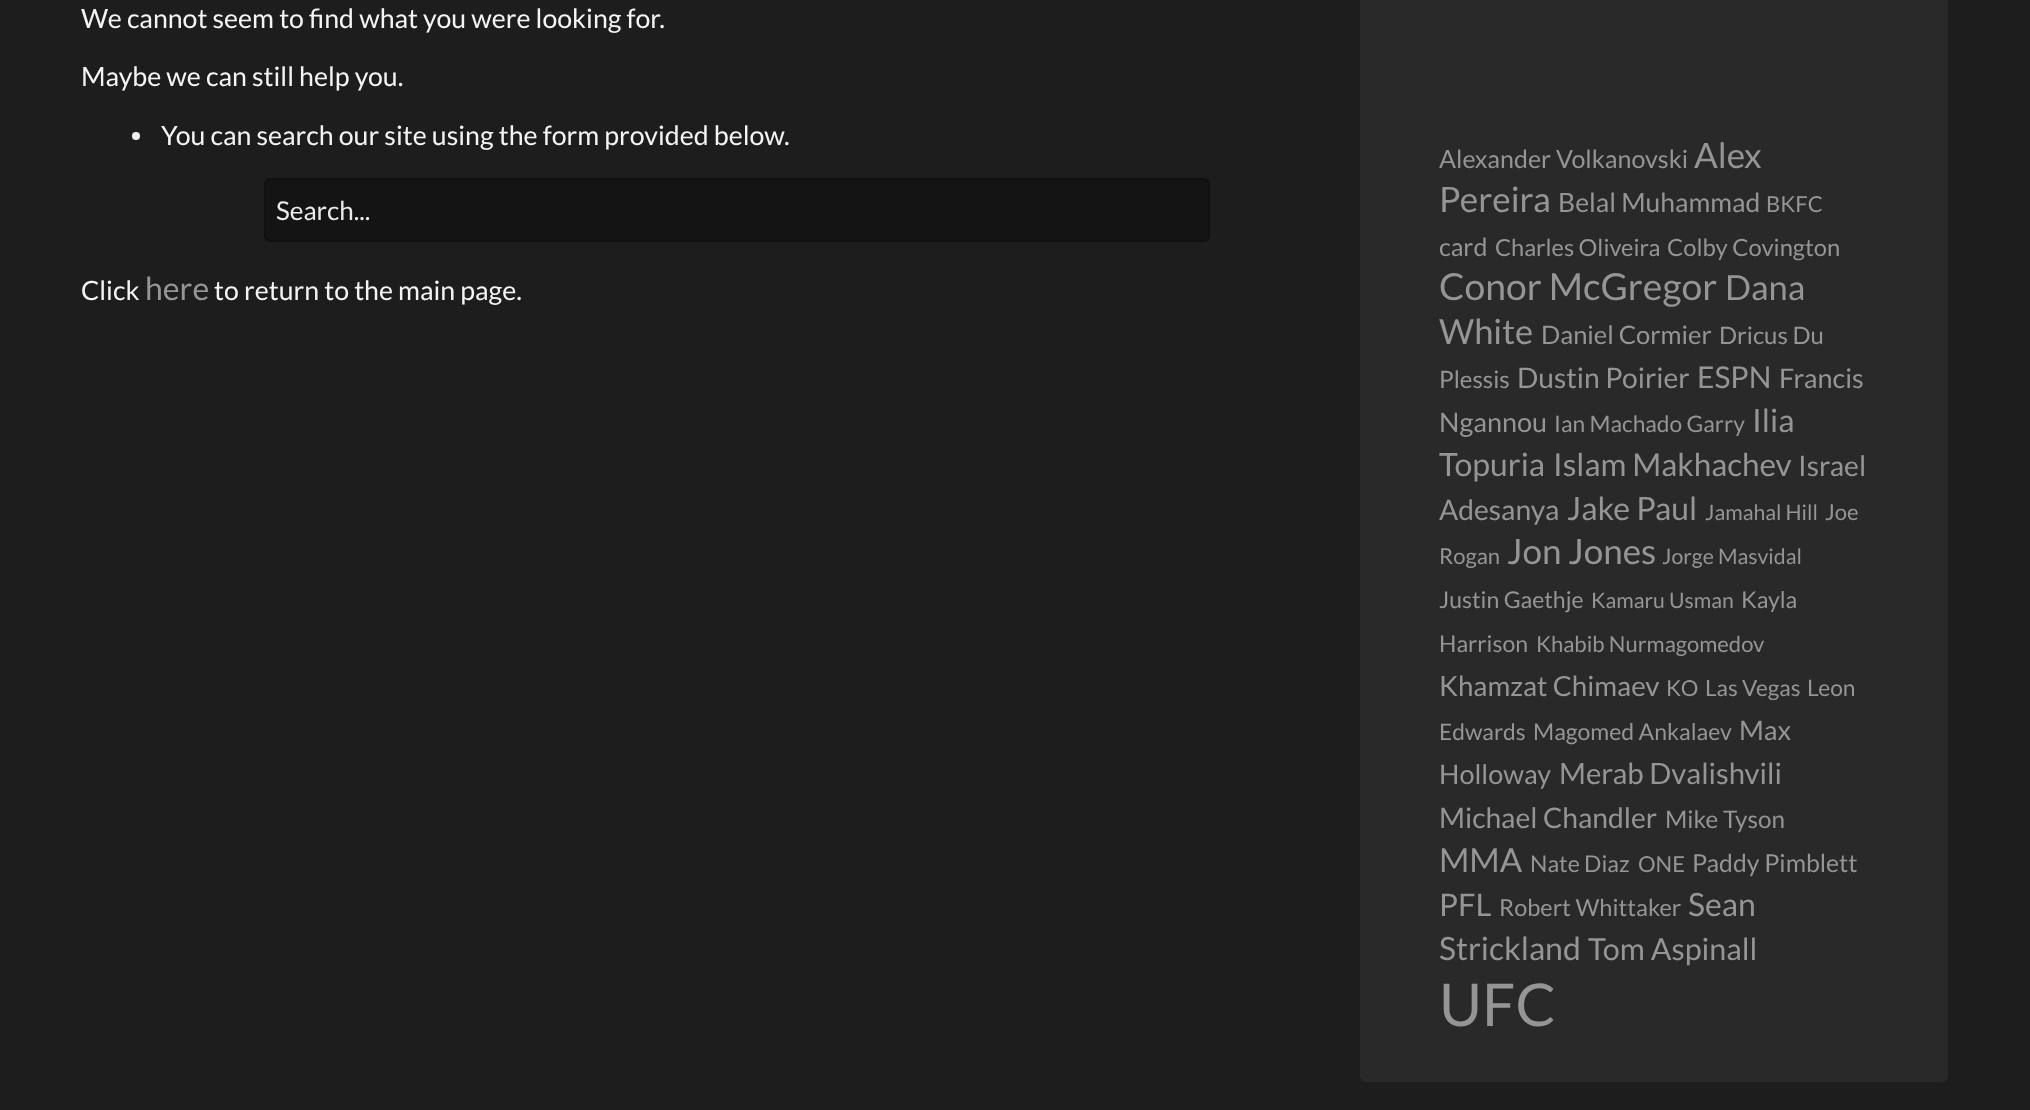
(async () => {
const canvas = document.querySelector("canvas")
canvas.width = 2030
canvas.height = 1110
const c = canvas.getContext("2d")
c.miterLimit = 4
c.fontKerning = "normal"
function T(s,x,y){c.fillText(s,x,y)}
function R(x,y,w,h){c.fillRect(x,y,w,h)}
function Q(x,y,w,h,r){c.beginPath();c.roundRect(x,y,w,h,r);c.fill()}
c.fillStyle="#1d1d1d"
R(0,0,2030,1110)
c.font="26.7px Lato"
c.fillStyle="#f4f4f4"
T("We cannot seem to find what you were looking for.",81,28)
T("Maybe we can still help you.",81,86)
c.beginPath()
c.arc(136,136,4,0,7)
c.fill()
T("You can search our site using the form provided below.",161,145)
c.fillStyle="#141414"
c.beginPath()
c.roundRect(265,179,944,62,5)
c.fill()
c.strokeStyle="#111"
c.lineWidth=2
c.stroke()
c.font="26px Lato"
c.fillStyle="#eaeaea"
T("Search...",276,220)
c.font="26.7px Lato"
c.fillStyle="#f4f4f4"
T("Click",81,300)
c.font="32px Lato"
c.fillStyle="#949595"
T("here",145,300)
c.font="26.7px Lato"
c.fillStyle="#f4f4f4"
T("to return to the main page.",214,300)
c.fillStyle="#292929"
Q(1360,-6,588,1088,6)
c.font="25px Lato"
c.fillStyle="#949595"
T("Alexander Volkanovski",1439,168)
c.font="35px Lato"
T("Alex",1694,168)
T("Pereira",1439,212)
c.font="26.5px Lato"
T("Belal Muhammad",1558,212)
c.font="22px Lato"
T("BKFC",1766,212)
c.font="25px Lato"
T("card",1439,256)
c.font="23.5px Lato"
T("Charles Oliveira",1495,256)
c.font="23.75px Lato"
T("Colby Covington",1667,256)
c.font="37.25px Lato"
T("Conor McGregor",1439,300)
c.font="34.5px Lato"
T("Dana",1725,300)
T("White",1439,344)
c.font="25.5px Lato"
T("Daniel Cormier",1541,344)
c.font="24px Lato"
T("Dricus Du",1719,344)
T("Plessis",1439,388)
c.font="28.25px Lato"
T("Dustin Poirier",1517,388)
c.font="30px Lato"
T("ESPN",1697,388)
c.font="27px Lato"
T("Francis",1779,388)
T("Ngannou",1439,432)
c.font="22.75px Lato"
T("Ian Machado Garry",1554,432)
c.font="32px Lato"
T("Ilia",1752,432)
T("Topuria",1439,476)
c.font="31.5px Lato"
T("Islam Makhachev",1553,476)
c.font="28.25px Lato"
T("Israel",1798,476)
T("Adesanya",1439,520)
c.font="32px Lato"
T("Jake Paul",1567,520)
c.font="21.25px Lato"
T("Jamahal Hill",1705,520)
c.font="22px Lato"
T("Joe",1825,520)
T("Rogan",1439,564)
c.font="35px Lato"
T("Jon Jones",1507,564)
c.font="21.25px Lato"
T("Jorge Masvidal",1662,564)
c.font="23px Lato"
T("Justin Gaethje",1439,608)
c.font="21.25px Lato"
T("Kamaru Usman",1591,608)
c.font="23px Lato"
T("Kayla",1741,608)
T("Harrison",1439,652)
c.font="22px Lato"
T("Khabib Nurmagomedov",1536,652)
c.font="27.75px Lato"
T("Khamzat Chimaev",1439,696)
c.font="22px Lato"
T("KO",1666,696)
c.font="22.5px Lato"
T("Las Vegas",1705,696)
c.font="22.75px Lato"
T("Leon",1807,696)
T("Edwards",1439,740)
c.font="23px Lato"
T("Magomed Ankalaev",1533,740)
c.font="27px Lato"
T("Max",1739,740)
T("Holloway",1439,784)
c.font="29.25px Lato"
T("Merab Dvalishvili",1559,784)
c.font="28.25px Lato"
T("Michael Chandler",1439,828)
c.font="24.25px Lato"
T("Mike Tyson",1665,828)
c.font="33px Lato"
T("MMA",1439,872)
c.font="23px Lato"
T("Nate Diaz",1530,872)
c.font="22px Lato"
T("ONE",1638,872)
c.font="24.75px Lato"
T("Paddy Pimblett",1692,872)
c.font="31px Lato"
T("PFL",1439,916)
c.font="23.5px Lato"
T("Robert Whittaker",1499,916)
c.font="32px Lato"
T("Sean",1688,916)
T("Strickland",1439,960)
c.font="30.5px Lato"
T("Tom Aspinall",1588,960)
c.font="59px Lato"
T("UFC",1439,1026)
})()
